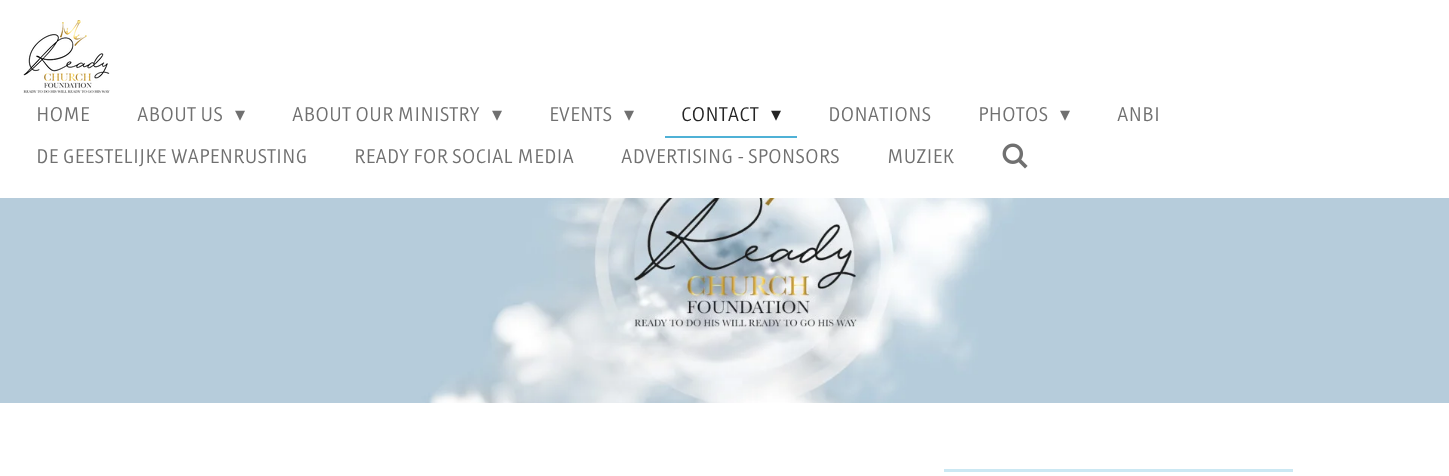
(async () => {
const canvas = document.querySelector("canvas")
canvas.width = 1449
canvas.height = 476
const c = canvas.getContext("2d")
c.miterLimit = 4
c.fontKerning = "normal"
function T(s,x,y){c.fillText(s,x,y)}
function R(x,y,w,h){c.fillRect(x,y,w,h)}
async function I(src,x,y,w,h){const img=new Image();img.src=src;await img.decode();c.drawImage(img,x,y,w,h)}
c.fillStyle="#fff"
R(0,0,1449,476)
await I("1.png",23,20,87,74)
c.font="20px Ruluko"
c.fillStyle="#707070"
T("HOME",36,121)
T("ABOUT US",137,121)
c.font="20px DejaVu Sans"
T("▾",235,121)
c.font="20px Ruluko"
T("ABOUT OUR MINISTRY",292,121)
c.font="20px DejaVu Sans"
T("▾",492,121)
c.font="20px Ruluko"
T("EVENTS",549,121)
c.font="20px DejaVu Sans"
T("▾",624,121)
c.fillStyle="#4fb1d6"
R(665,136,132,2)
c.font="20px Ruluko"
c.fillStyle="#242424"
T("CONTACT",681,121)
c.font="20px DejaVu Sans"
T("▾",771,121)
c.font="20px Ruluko"
c.fillStyle="#707070"
T("DONATIONS",828,121)
T("PHOTOS",978,121)
c.font="20px DejaVu Sans"
T("▾",1060,121)
c.font="20px Ruluko"
T("ANBI",1117,121)
T("DE GEESTELIJKE WAPENRUSTING",36,163)
T("READY FOR SOCIAL MEDIA",354,163)
T("ADVERTISING - SPONSORS",621,163)
T("MUZIEK",887,163)
await I("2.png",1002,143,26,26)
await I("3.png",0,198,1449,205)
c.fillStyle="#cbe8f3"
R(944,469,349,3)
})()
